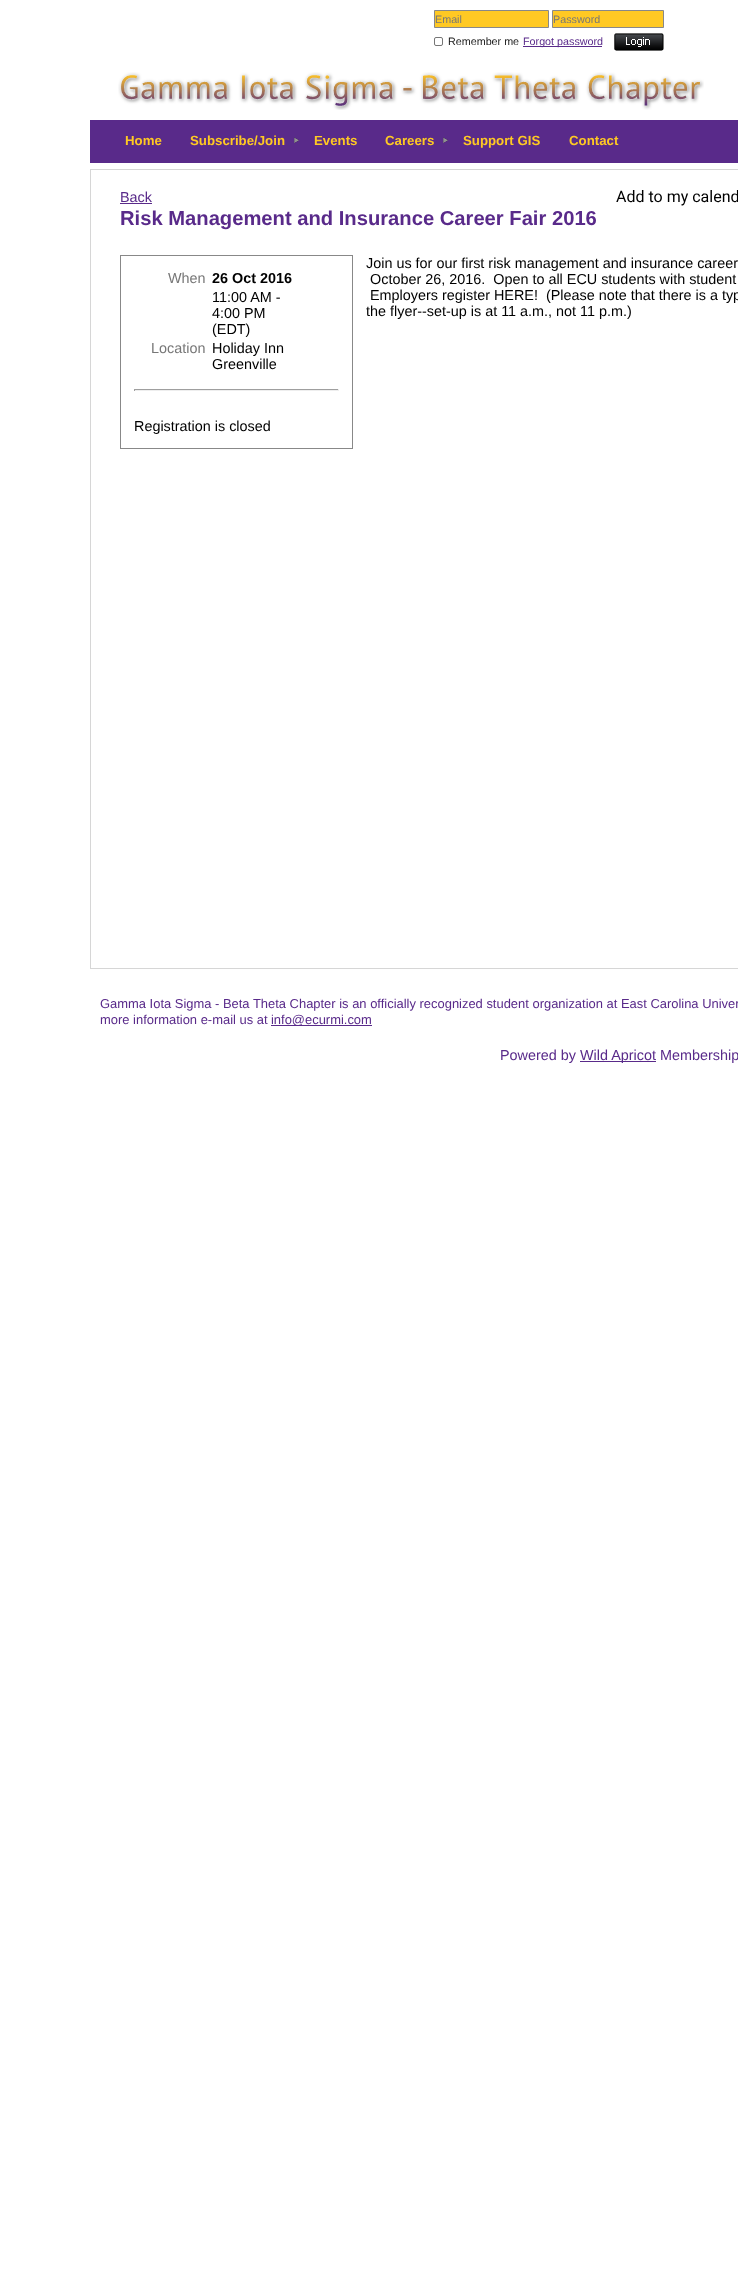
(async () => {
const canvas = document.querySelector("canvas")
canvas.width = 738
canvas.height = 2285
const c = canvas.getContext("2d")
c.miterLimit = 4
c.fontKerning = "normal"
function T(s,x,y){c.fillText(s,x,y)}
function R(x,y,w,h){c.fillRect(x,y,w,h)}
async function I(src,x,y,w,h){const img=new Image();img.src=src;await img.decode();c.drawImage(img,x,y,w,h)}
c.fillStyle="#fff"
R(0,0,738,2285)
c.fillStyle="#ffc923"
c.beginPath()
c.rect(434.5,10.5,114,17)
c.fill()
c.strokeStyle="#888"
c.stroke()
c.font="10.75px Liberation Sans"
c.fillStyle="#777"
T("Email",435,23)
c.fillStyle="#ffc923"
c.beginPath()
c.rect(552.5,10.5,111,17)
c.fill()
c.stroke()
c.fillStyle="#777"
T("Password",553,23)
c.beginPath()
c.roundRect(434.5,37.5,8,8,1.5)
c.strokeStyle="#767676"
c.stroke()
c.fillStyle="#1a1a1a"
T("Remember me",448,45)
c.fillStyle="#592a8a"
R(523,46,79,1)
T("Forgot password",523,45)
await I("1.png",614,33,50,18)
await I("2.png",118,72,586,38)
R(90,120,648,43)
c.font="bold 13.25px Liberation Sans"
c.fillStyle="#ffc923"
T("Home",125,145)
await I("3.png",294,137,5,6)
T("Subscribe/Join",190,145)
T("Events",314,145)
await I("3.png",443,137,5,6)
T("Careers",385,145)
T("Support GIS",463,145)
T("Contact",569,145)
c.strokeStyle="#d6d6d6"
c.strokeRect(90.5,169.5,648,799)
c.font="14.4px Liberation Sans"
c.fillStyle="#592a8a"
T("Back",120,202)
R(120,203,32,1)
c.font="16px Roboto"
c.fillStyle="#000"
T("Add to my calend",616,202)
c.font="bold 20.2px Liberation Sans"
c.fillStyle="#592a8a"
T("Risk Management and Insurance Career Fair 2016",120,225)
c.strokeStyle="#888"
c.strokeRect(120.5,255.5,232,193)
c.font="14.4px Liberation Sans"
c.fillStyle="#777"
T("When",168,283)
c.font="bold 14.4px Liberation Sans"
c.fillStyle="#000"
T("26 Oct 2016",212,283)
c.font="14.4px Liberation Sans"
T("11:00 AM -",212,302)
T("4:00 PM",212,318)
T("(EDT)",212,334)
c.fillStyle="#777"
T("Location",151,353)
c.fillStyle="#000"
T("Holiday Inn",212,353)
T("Greenville",212,369)
c.fillStyle="#9f9f9f"
R(134,389,205,1)
c.fillStyle="#eee"
R(338,389,1,2)
R(134,390,205,1)
c.fillStyle="#9f9f9f"
R(134,389,1,2)
c.fillStyle="#000"
T("Registration is closed",134,431)
T("Join us for our first risk management and insurance career",366,268)
T("October 26, 2016.  Open to all ECU students with student",370,284)
T("Employers register HERE!  (Please note that there is a typ",370,300)
T("the flyer--set-up is at 11 a.m., not 11 p.m.)",366,316)
c.font="12.95px Liberation Sans"
c.fillStyle="#592a8a"
T("Gamma Iota Sigma - Beta Theta Chapter is an officially recognized student organization at East Carolina Univer",100,1008)
T("more information e-mail us at",100,1024)
R(271,1025,101,1)
T("info@ecurmi.com",271,1024)
c.font="14.4px Liberation Sans"
T("Powered by",500,1060)
R(580,1061,76,1)
T("Wild Apricot Membership",580,1060)
})()
